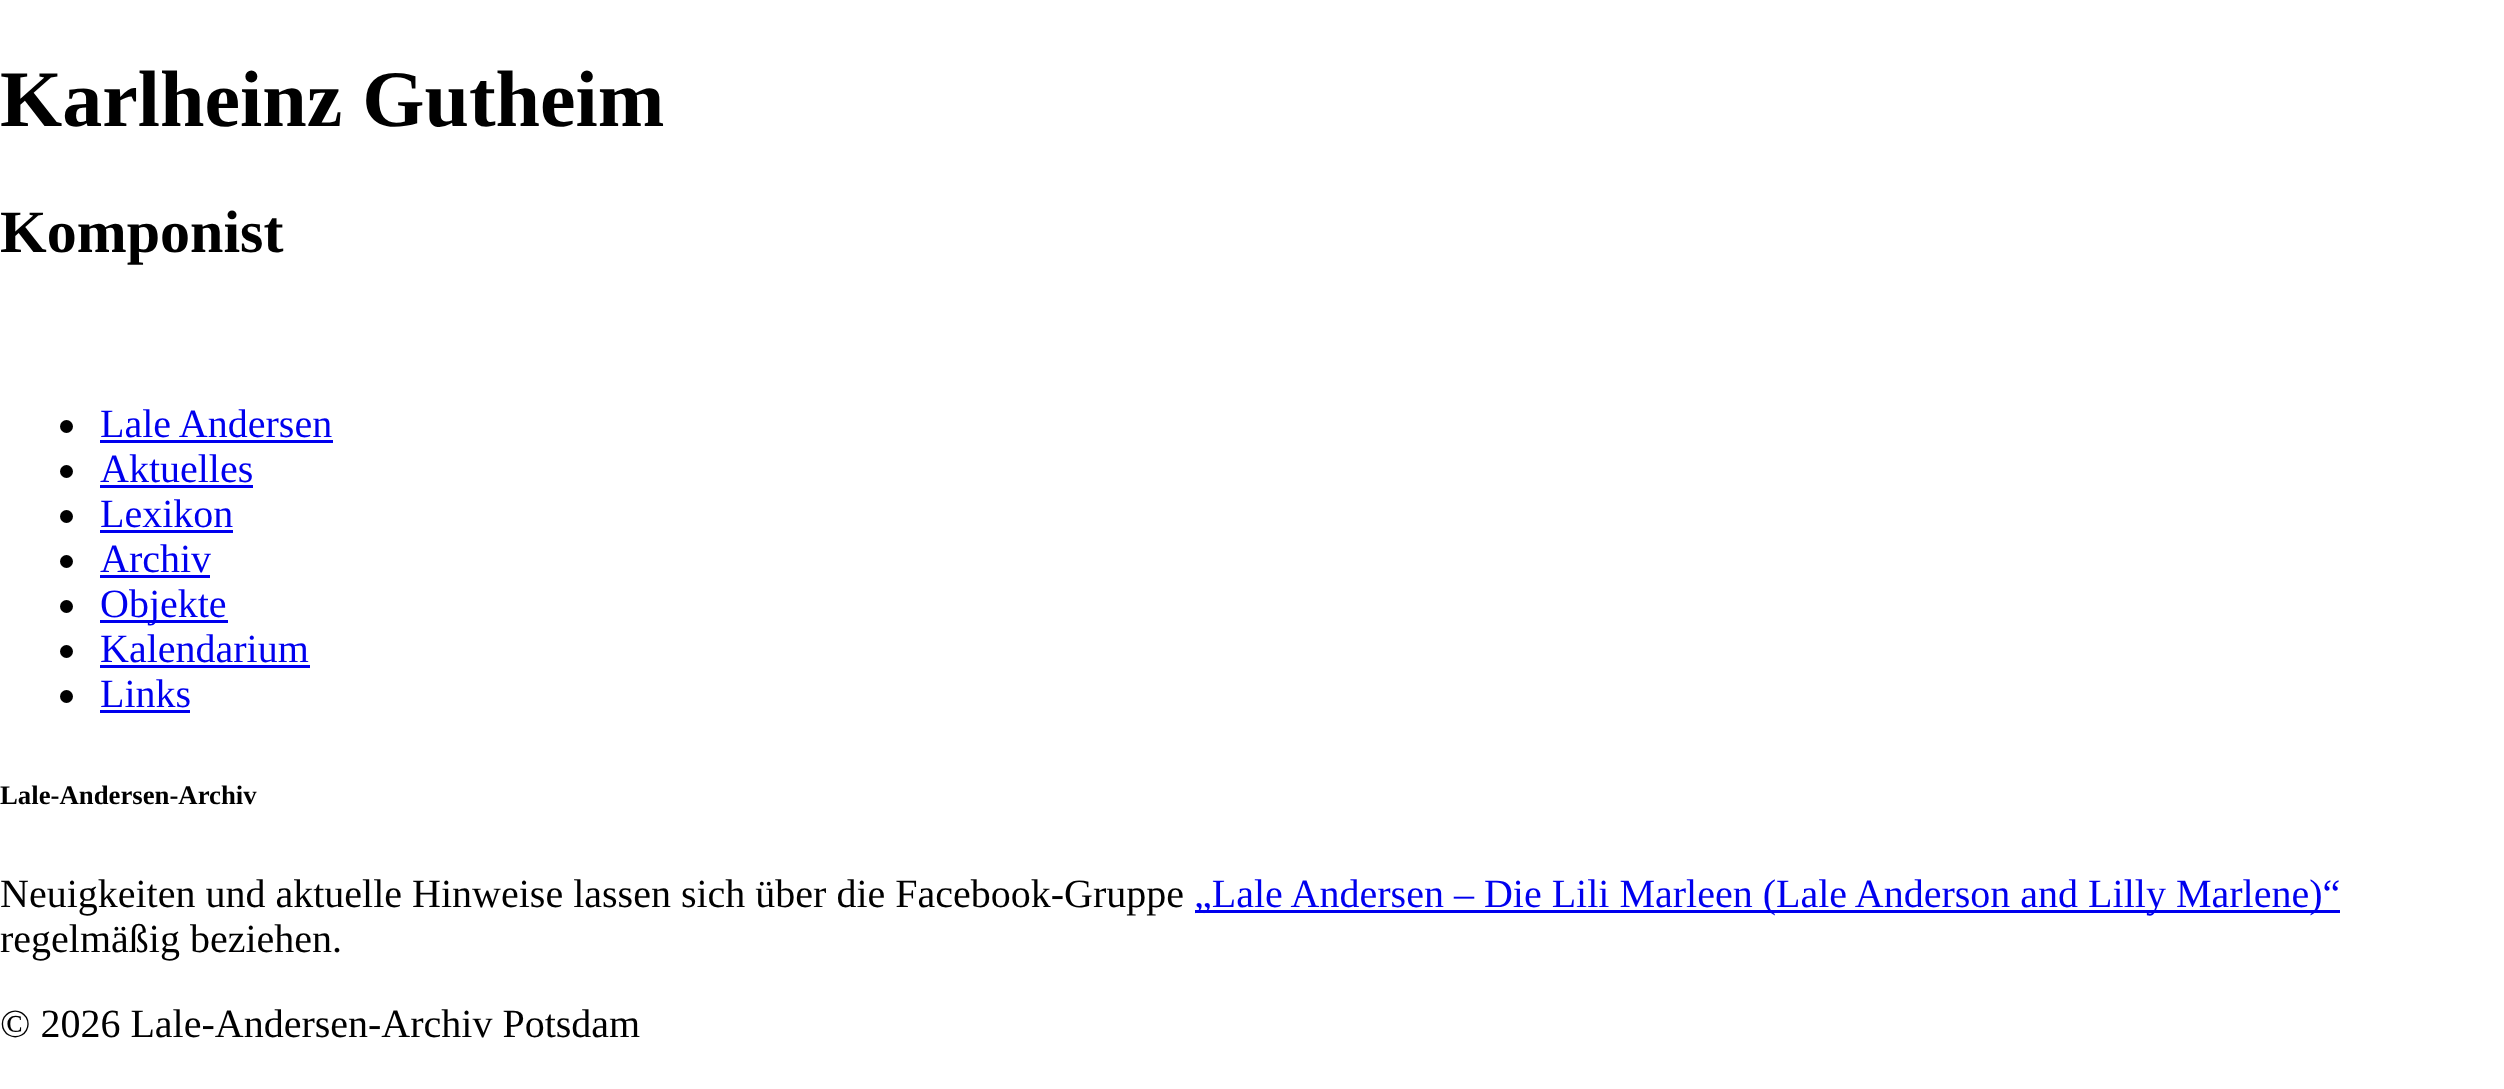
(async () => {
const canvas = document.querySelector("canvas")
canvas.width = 2504
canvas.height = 1089
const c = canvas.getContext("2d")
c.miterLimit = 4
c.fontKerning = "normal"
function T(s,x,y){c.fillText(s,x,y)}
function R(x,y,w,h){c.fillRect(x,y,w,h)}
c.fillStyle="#fff"
R(0,0,2504,1089)
c.font="bold 80px Liberation Serif"
c.fillStyle="#000"
T("Karlheinz Gutheim",0,126)
c.font="bold 60px Liberation Serif"
T("Komponist",0,252)
c.beginPath()
c.arc(66.5,426.5,6.5,0,7)
c.fill()
c.font="40px Liberation Serif"
c.fillStyle="#00e"
T("Lale Andersen",100,437)
R(100,440,233,3)
c.fillStyle="#000"
c.beginPath()
c.arc(66.5,471.5,6.5,0,7)
c.fill()
c.fillStyle="#00e"
T("Aktuelles",100,482)
R(100,485,153,3)
c.fillStyle="#000"
c.beginPath()
c.arc(66.5,516.5,6.5,0,7)
c.fill()
c.fillStyle="#00e"
T("Lexikon",100,527)
R(100,530,133,3)
c.fillStyle="#000"
c.beginPath()
c.arc(66.5,561.5,6.5,0,7)
c.fill()
c.fillStyle="#00e"
T("Archiv",100,572)
R(100,575,110,3)
c.fillStyle="#000"
c.beginPath()
c.arc(66.5,606.5,6.5,0,7)
c.fill()
c.fillStyle="#00e"
R(100,620,128,3)
T("Objekte",100,617)
c.fillStyle="#000"
c.beginPath()
c.arc(66.5,651.5,6.5,0,7)
c.fill()
c.fillStyle="#00e"
T("Kalendarium",100,662)
R(100,665,210,3)
c.fillStyle="#000"
c.beginPath()
c.arc(66.5,696.5,6.5,0,7)
c.fill()
c.fillStyle="#00e"
T("Links",100,707)
R(100,710,90,3)
c.font="bold 26.75px Liberation Serif"
c.fillStyle="#000"
T("Lale-Andersen-Archiv",0,804)
c.font="40px Liberation Serif"
T("Neuigkeiten und aktuelle Hinweise lassen sich über die Facebook-Gruppe",0,907)
c.fillStyle="#00e"
R(1195,910,1145,3)
T("„Lale Andersen – Die Lili Marleen (Lale Anderson and Lilly Marlene)“",1194,907)
c.fillStyle="#000"
T("regelmäßig beziehen.",0,952)
T("© 2026 Lale-Andersen-Archiv Potsdam",0,1037)
})()
